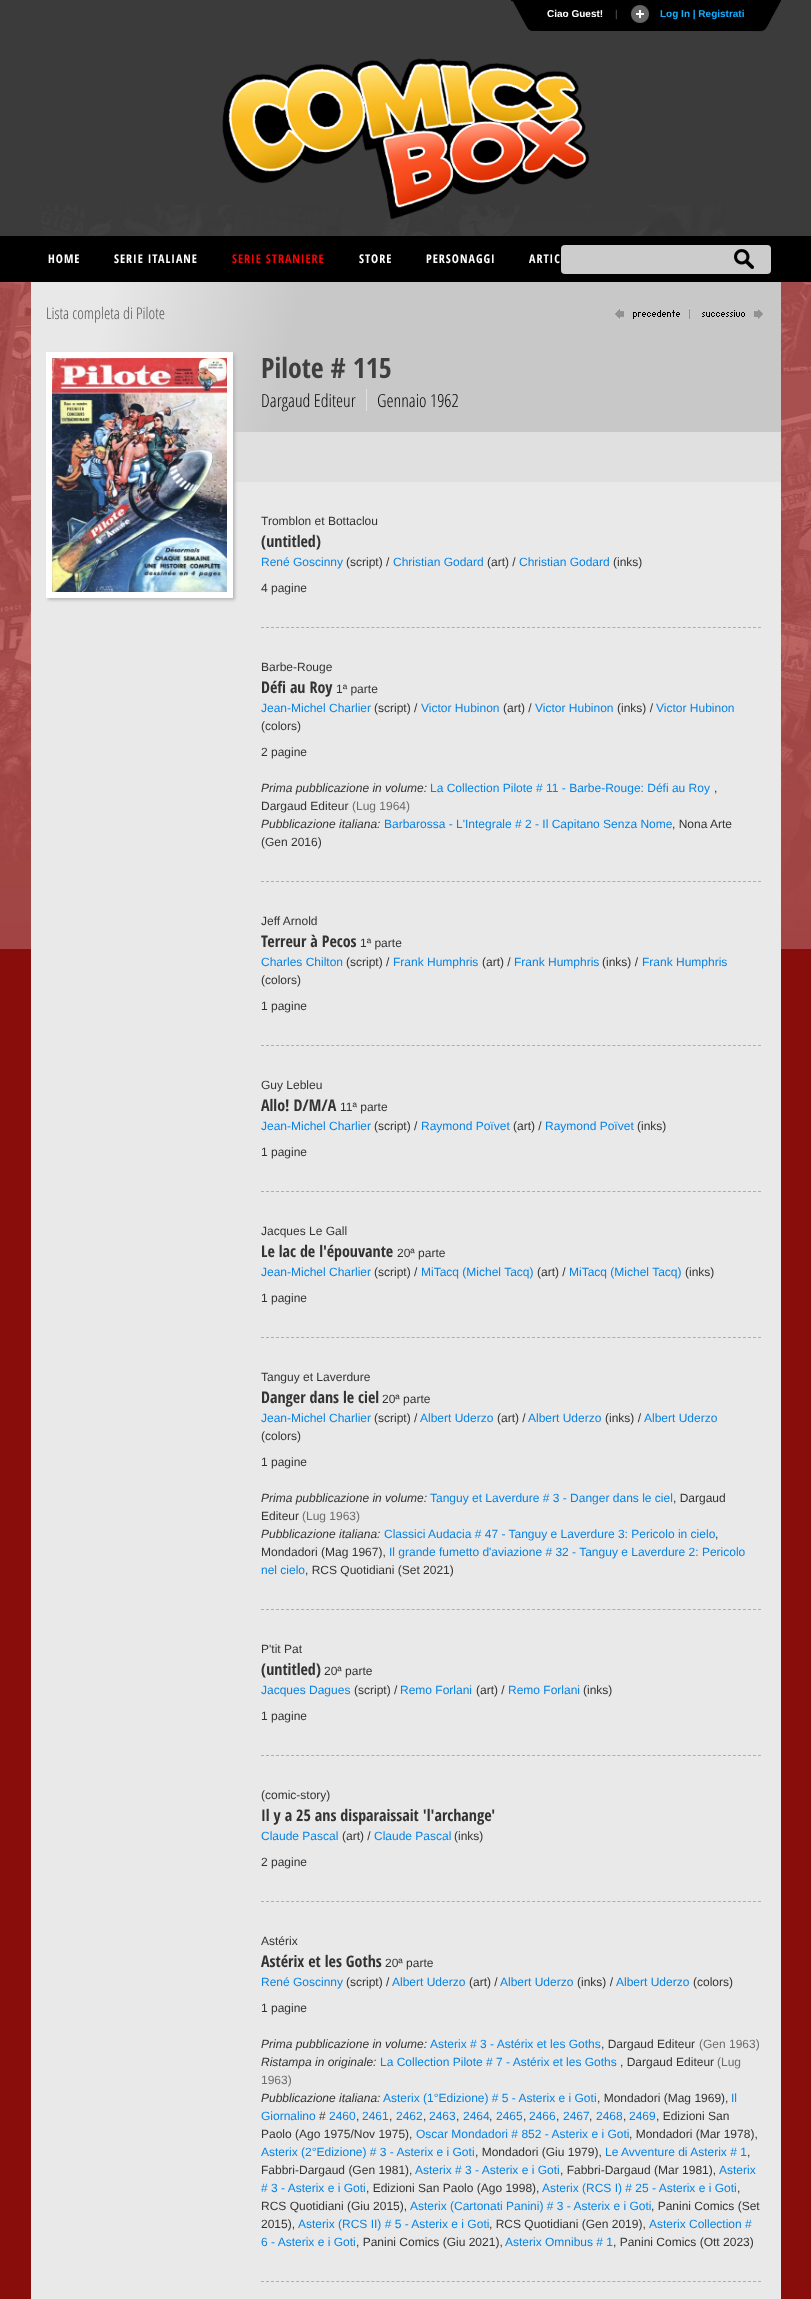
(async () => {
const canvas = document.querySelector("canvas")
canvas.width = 811
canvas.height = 2299
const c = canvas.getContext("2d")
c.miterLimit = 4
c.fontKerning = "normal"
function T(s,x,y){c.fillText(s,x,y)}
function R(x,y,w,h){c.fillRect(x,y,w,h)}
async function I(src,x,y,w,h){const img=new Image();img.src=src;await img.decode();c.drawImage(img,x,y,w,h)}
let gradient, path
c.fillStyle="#890d0a"
R(0,0,811,2299)
await I("1.png",0,282,811,667)
c.fillStyle="#3b3b3b"
R(0,0,811,236)
await I("2.png",41,205,684,31)
await I("3.png",511,0,30,31)
c.fillStyle="#000"
R(541,0,210,31)
c.font="bold 10px Liberation Sans"
c.fillStyle="#fff"
T("Ciao Guest!",547,17)
c.fillStyle="#403f3f"
T("|",615,17)
await I("4.png",631,5,18,18)
c.fillStyle="#15adff"
T("Log In | Registrati",660,17)
await I("5.png",751,0,30,32)
await I("6.png",222,58,368,162)
c.fillStyle="#000"
R(0,236,811,46)
c.letterSpacing="1px"
c.font="bold 12px Open Sans Condensed"
c.fillStyle="#fff"
T("HOME",48,263)
T("SERIE ITALIANE",114,263)
c.fillStyle="#ff0004"
T("SERIE STRANIERE",232,263)
c.fillStyle="#fff"
T("STORE",359,263)
T("PERSONAGGI",426,263)
T("ARTIC",529,263)
c.fillStyle="#ccc"
c.beginPath()
c.roundRect(561,245,157,29,[4,0,0,4])
c.fill()
c.beginPath()
c.roundRect(718,245,53,29,[0,4,4,0])
c.fill()
await I("7.png",734,249,20,20)
c.fillStyle="#e9e9e9"
R(31,718,202,1581)
gradient = c.createLinearGradient(24,317,788,479)
gradient.addColorStop(.1,"#e8e8e8")
gradient.addColorStop(.34,"#c8c8c8")
c.fillStyle = gradient
R(31,282,750,150)
c.letterSpacing="0px"
c.font="300 16px Open Sans Condensed"
c.fillStyle="#555"
T("Lista completa di Pilote",46,319)
await I("8.png",615,308,75,12)
await I("9.png",702,308,61,12)
c.fillStyle="#e9e9e9"
R(31,352,202,366)
c.fillStyle="#e0e0e0"
R(233,432,548,50)
c.fillStyle="#e9e9e9"
R(233,482,548,1817)
c.fillStyle="#b8b8b8"
c.filter="blur(1.5px)"
c.beginPath()
c.rect(48,354,187,246)
c.fill()
c.filter="none"
c.strokeStyle="#fff"
c.lineWidth=6
c.strokeRect(49,355,181,240)
await I("10.png",52,358,175,234)
c.font="bold 28px Open Sans Condensed"
c.fillStyle="#403f3f"
T("Pilote # 115",261,378)
c.fillStyle="#e1e1e1"
R(366,389,1,22)
c.font="300 18px Open Sans Condensed"
c.fillStyle="#000"
T("Dargaud Editeur",261,407)
T("Gennaio 1962",377,407)
c.font="12px Liberation Sans"
c.fillStyle="#333"
T("Tromblon et Bottaclou",261,525)
c.font="bold 16px Open Sans Condensed"
T("(untitled)",261,547)
c.font="12px Liberation Sans"
c.fillStyle="#0a83e3"
T("René Goscinny",261,566)
c.fillStyle="#333"
T("(script) /",346,566)
c.fillStyle="#0a83e3"
T("Christian Godard",393,566)
c.fillStyle="#333"
T("(art) /",487,566)
c.fillStyle="#0a83e3"
T("Christian Godard",519,566)
c.fillStyle="#333"
T("(inks)",613,566)
T("4 pagine",261,592)
path = new Path2D("M261 627.5h500")
c.strokeStyle="#aeaeae"
c.lineWidth=1
c.setLineDash([3,2.02])
c.stroke(path)
T("Barbe-Rouge",261,671)
c.font="bold 16px Open Sans Condensed"
T("Défi au Roy",261,693)
c.font="12px Liberation Sans"
T("1ª parte",336,693)
c.fillStyle="#0a83e3"
T("Jean-Michel Charlier",261,712)
c.fillStyle="#333"
T("(script) /",374,712)
c.fillStyle="#0a83e3"
T("Victor Hubinon",421,712)
c.fillStyle="#333"
T("(art) /",503,712)
c.fillStyle="#0a83e3"
T("Victor Hubinon",535,712)
c.fillStyle="#333"
T("(inks) /",617,712)
c.fillStyle="#0a83e3"
T("Victor Hubinon",656,712)
c.fillStyle="#333"
T("(colors)",261,730)
T("2 pagine",261,756)
c.font="italic 12px Liberation Sans"
T("Prima pubblicazione in volume:",261,792)
c.font="12px Liberation Sans"
c.fillStyle="#0a83e3"
T("La Collection Pilote # 11 - Barbe-Rouge: Défi au Roy",430,792)
c.fillStyle="#333"
T(",",714,792)
T("Dargaud Editeur",261,810)
c.fillStyle="#6d6d6d"
T("(Lug 1964)",352,810)
c.font="italic 12px Liberation Sans"
c.fillStyle="#333"
T("Pubblicazione italiana:",261,828)
c.font="12px Liberation Sans"
c.fillStyle="#0a83e3"
T("Barbarossa - L'Integrale # 2 - Il Capitano Senza Nome",384,828)
c.fillStyle="#333"
T(", Nona Arte",672,828)
T("(Gen 2016)",261,846)
path = new Path2D("M261 881.5h500")
c.stroke(path)
T("Jeff Arnold",261,925)
c.font="bold 16px Open Sans Condensed"
T("Terreur à Pecos",261,947)
c.font="12px Liberation Sans"
T("1ª parte",360,947)
c.fillStyle="#0a83e3"
T("Charles Chilton",261,966)
c.fillStyle="#333"
T("(script) /",346,966)
c.fillStyle="#0a83e3"
T("Frank Humphris",393,966)
c.fillStyle="#333"
T("(art) /",482,966)
c.fillStyle="#0a83e3"
T("Frank Humphris",514,966)
c.fillStyle="#333"
T("(inks) /",602,966)
c.fillStyle="#0a83e3"
T("Frank Humphris",642,966)
c.fillStyle="#333"
T("(colors)",261,984)
T("1 pagine",261,1010)
path = new Path2D("M261 1045.5h500")
c.stroke(path)
T("Guy Lebleu",261,1089)
c.font="bold 16px Open Sans Condensed"
T("Allo! D/M/A",261,1111)
c.font="12px Liberation Sans"
T("11ª parte",340,1111)
c.fillStyle="#0a83e3"
T("Jean-Michel Charlier",261,1130)
c.fillStyle="#333"
T("(script) /",374,1130)
c.fillStyle="#0a83e3"
T("Raymond Poïvet",421,1130)
c.fillStyle="#333"
T("(art) /",513,1130)
c.fillStyle="#0a83e3"
T("Raymond Poïvet",545,1130)
c.fillStyle="#333"
T("(inks)",637,1130)
T("1 pagine",261,1156)
path = new Path2D("M261 1191.5h500")
c.stroke(path)
T("Jacques Le Gall",261,1235)
c.font="bold 16px Open Sans Condensed"
T("Le lac de l'épouvante",261,1257)
c.font="12px Liberation Sans"
T("20ª parte",397,1257)
c.fillStyle="#0a83e3"
T("Jean-Michel Charlier",261,1276)
c.fillStyle="#333"
T("(script) /",374,1276)
c.fillStyle="#0a83e3"
T("MiTacq (Michel Tacq)",421,1276)
c.fillStyle="#333"
T("(art) /",537,1276)
c.fillStyle="#0a83e3"
T("MiTacq (Michel Tacq)",569,1276)
c.fillStyle="#333"
T("(inks)",685,1276)
T("1 pagine",261,1302)
path = new Path2D("M261 1337.5h500")
c.stroke(path)
T("Tanguy et Laverdure",261,1381)
c.font="bold 16px Open Sans Condensed"
T("Danger dans le ciel",261,1403)
c.font="12px Liberation Sans"
T("20ª parte",382,1403)
c.fillStyle="#0a83e3"
T("Jean-Michel Charlier",261,1422)
c.fillStyle="#333"
T("(script) /",374,1422)
c.fillStyle="#0a83e3"
T("Albert Uderzo",420,1422)
c.fillStyle="#333"
T("(art) /",497,1422)
c.fillStyle="#0a83e3"
T("Albert Uderzo",528,1422)
c.fillStyle="#333"
T("(inks) /",605,1422)
c.fillStyle="#0a83e3"
T("Albert Uderzo",644,1422)
c.fillStyle="#333"
T("(colors)",261,1440)
T("1 pagine",261,1466)
c.font="italic 12px Liberation Sans"
T("Prima pubblicazione in volume:",261,1502)
c.font="12px Liberation Sans"
c.fillStyle="#0a83e3"
T("Tanguy et Laverdure # 3 - Danger dans le ciel",430,1502)
c.fillStyle="#333"
T(", Dargaud",673,1502)
T("Editeur",261,1520)
c.fillStyle="#6d6d6d"
T("(Lug 1963)",302,1520)
c.font="italic 12px Liberation Sans"
c.fillStyle="#333"
T("Pubblicazione italiana:",261,1538)
c.font="12px Liberation Sans"
c.fillStyle="#0a83e3"
T("Classici Audacia # 47 - Tanguy e Laverdure 3: Pericolo in cielo",384,1538)
c.fillStyle="#333"
T(",",715,1538)
T("Mondadori (Mag 1967),",261,1556)
c.fillStyle="#0a83e3"
T("Il grande fumetto d'aviazione # 32 - Tanguy e Laverdure 2: Pericolo",389,1556)
T("nel cielo",261,1574)
c.fillStyle="#333"
T(", RCS Quotidiani (Set 2021)",305,1574)
path = new Path2D("M261 1609.5h500")
c.stroke(path)
T("P'tit Pat",261,1653)
c.font="bold 16px Open Sans Condensed"
T("(untitled)",261,1675)
c.font="12px Liberation Sans"
T("20ª parte",324,1675)
c.fillStyle="#0a83e3"
T("Jacques Dagues",261,1694)
c.fillStyle="#333"
T("(script) /",354,1694)
c.fillStyle="#0a83e3"
T("Remo Forlani",400,1694)
c.fillStyle="#333"
T("(art) /",476,1694)
c.fillStyle="#0a83e3"
T("Remo Forlani",508,1694)
c.fillStyle="#333"
T("(inks)",583,1694)
T("1 pagine",261,1720)
path = new Path2D("M261 1755.5h500")
c.stroke(path)
T("(comic-story)",261,1799)
c.font="bold 16px Open Sans Condensed"
T("Il y a 25 ans disparaissait 'l'archange'",261,1821)
c.font="12px Liberation Sans"
c.fillStyle="#0a83e3"
T("Claude Pascal",261,1840)
c.fillStyle="#333"
T("(art) /",342,1840)
c.fillStyle="#0a83e3"
T("Claude Pascal",374,1840)
c.fillStyle="#333"
T("(inks)",454,1840)
T("2 pagine",261,1866)
path = new Path2D("M261 1901.5h500")
c.stroke(path)
T("Astérix",261,1945)
c.font="bold 16px Open Sans Condensed"
T("Astérix et les Goths",261,1967)
c.font="12px Liberation Sans"
T("20ª parte",385,1967)
c.fillStyle="#0a83e3"
T("René Goscinny",261,1986)
c.fillStyle="#333"
T("(script) /",346,1986)
c.fillStyle="#0a83e3"
T("Albert Uderzo",392,1986)
c.fillStyle="#333"
T("(art) /",469,1986)
c.fillStyle="#0a83e3"
T("Albert Uderzo",500,1986)
c.fillStyle="#333"
T("(inks) /",577,1986)
c.fillStyle="#0a83e3"
T("Albert Uderzo",616,1986)
c.fillStyle="#333"
T("(colors)",693,1986)
T("1 pagine",261,2012)
c.font="italic 12px Liberation Sans"
T("Prima pubblicazione in volume:",261,2048)
c.font="12px Liberation Sans"
c.fillStyle="#0a83e3"
T("Asterix # 3 - Astérix et les Goths",430,2048)
c.fillStyle="#333"
T(", Dargaud Editeur",601,2048)
c.fillStyle="#6d6d6d"
T("(Gen 1963)",699,2048)
c.font="italic 12px Liberation Sans"
c.fillStyle="#333"
T("Ristampa in originale:",261,2066)
c.font="12px Liberation Sans"
c.fillStyle="#0a83e3"
T("La Collection Pilote # 7 - Astérix et les Goths",380,2066)
c.fillStyle="#333"
T(", Dargaud Editeur",620,2066)
c.fillStyle="#6d6d6d"
T("(Lug",717,2066)
T("1963)",261,2084)
c.font="italic 12px Liberation Sans"
c.fillStyle="#333"
T("Pubblicazione italiana:",261,2102)
c.font="12px Liberation Sans"
c.fillStyle="#0a83e3"
T("Asterix (1°Edizione) # 5 - Asterix e i Goti",383,2102)
c.fillStyle="#333"
T(", Mondadori (Mag 1969),",597,2102)
c.fillStyle="#0a83e3"
T("Il",731,2102)
T("Giornalino",261,2120)
c.fillStyle="#333"
T("#",319,2120)
c.fillStyle="#0a83e3"
T("2460",329,2120)
c.fillStyle="#333"
T(",",356,2120)
c.fillStyle="#0a83e3"
T("2461",362,2120)
c.fillStyle="#333"
T(",",389,2120)
c.fillStyle="#0a83e3"
T("2462",396,2120)
c.fillStyle="#333"
T(",",423,2120)
c.fillStyle="#0a83e3"
T("2463",429,2120)
c.fillStyle="#333"
T(",",456,2120)
c.fillStyle="#0a83e3"
T("2464",463,2120)
c.fillStyle="#333"
T(",",489,2120)
c.fillStyle="#0a83e3"
T("2465",496,2120)
c.fillStyle="#333"
T(",",523,2120)
c.fillStyle="#0a83e3"
T("2466",529,2120)
c.fillStyle="#333"
T(",",556,2120)
c.fillStyle="#0a83e3"
T("2467",563,2120)
c.fillStyle="#333"
T(",",589,2120)
c.fillStyle="#0a83e3"
T("2468",596,2120)
c.fillStyle="#333"
T(",",623,2120)
c.fillStyle="#0a83e3"
T("2469",629,2120)
c.fillStyle="#333"
T(", Edizioni San",656,2120)
T("Paolo (Ago 1975/Nov 1975),",261,2138)
c.fillStyle="#0a83e3"
T("Oscar Mondadori # 852 - Asterix e i Goti",416,2138)
c.fillStyle="#333"
T(", Mondadori (Mar 1978),",629,2138)
c.fillStyle="#0a83e3"
T("Asterix (2°Edizione) # 3 - Asterix e i Goti",261,2156)
c.fillStyle="#333"
T(", Mondadori (Giu 1979),",475,2156)
c.fillStyle="#0a83e3"
T("Le Avventure di Asterix # 1",605,2156)
c.fillStyle="#333"
T(",",747,2156)
T("Fabbri-Dargaud (Gen 1981),",261,2174)
c.fillStyle="#0a83e3"
T("Asterix # 3 - Asterix e i Goti",415,2174)
c.fillStyle="#333"
T(", Fabbri-Dargaud (Mar 1981),",560,2174)
c.fillStyle="#0a83e3"
T("Asterix",719,2174)
T("# 3 - Asterix e i Goti",261,2192)
c.fillStyle="#333"
T(", Edizioni San Paolo (Ago 1998),",366,2192)
c.fillStyle="#0a83e3"
T("Asterix (RCS I) # 25 - Asterix e i Goti",542,2192)
c.fillStyle="#333"
T(",",737,2192)
T("RCS Quotidiani (Giu 2015),",261,2210)
c.fillStyle="#0a83e3"
T("Asterix (Cartonati Panini) # 3 - Asterix e i Goti",410,2210)
c.fillStyle="#333"
T(", Panini Comics (Set",651,2210)
T("2015),",261,2228)
c.fillStyle="#0a83e3"
T("Asterix (RCS II) # 5 - Asterix e i Goti",298,2228)
c.fillStyle="#333"
T(", RCS Quotidiani (Gen 2019),",489,2228)
c.fillStyle="#0a83e3"
T("Asterix Collection #",649,2228)
T("6 - Asterix e i Goti",261,2246)
c.fillStyle="#333"
T(", Panini Comics (Giu 2021),",356,2246)
c.fillStyle="#0a83e3"
T("Asterix Omnibus # 1",505,2246)
c.fillStyle="#333"
T(", Panini Comics (Ott 2023)",613,2246)
path = new Path2D("M261 2281.5h500")
c.stroke(path)
})()
